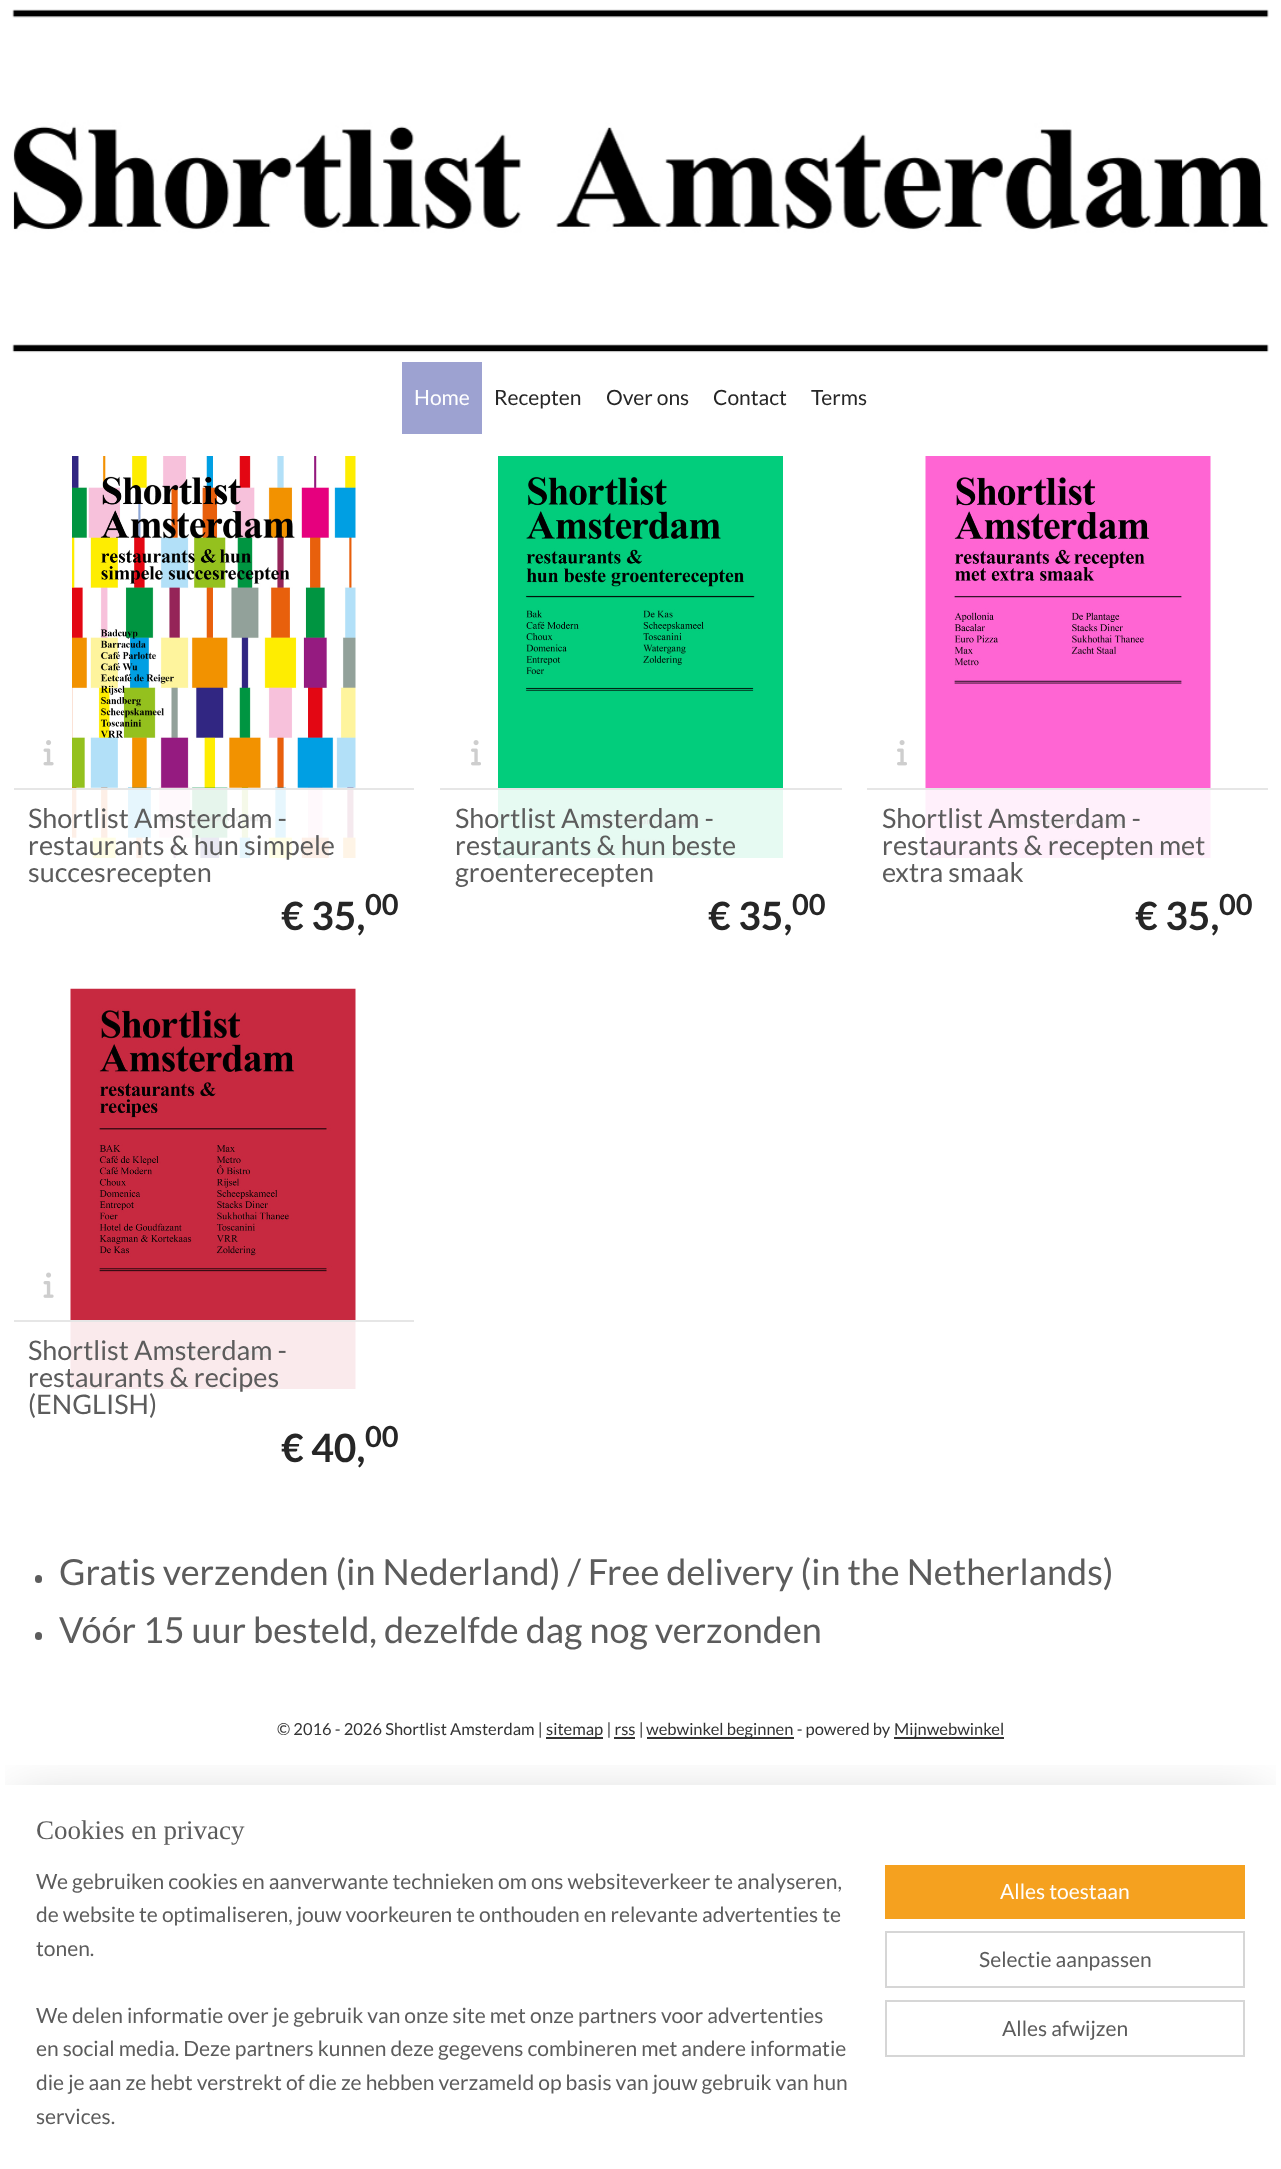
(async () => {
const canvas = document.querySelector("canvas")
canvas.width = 1281
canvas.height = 2169
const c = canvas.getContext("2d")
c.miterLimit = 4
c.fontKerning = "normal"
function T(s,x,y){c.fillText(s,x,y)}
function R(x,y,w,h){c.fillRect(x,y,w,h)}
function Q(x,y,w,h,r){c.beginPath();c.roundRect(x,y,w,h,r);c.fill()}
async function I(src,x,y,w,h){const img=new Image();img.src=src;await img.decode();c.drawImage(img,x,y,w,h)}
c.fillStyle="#fff"
R(0,0,1281,2169)
await I("1.png",12,9,1257,344)
c.fillStyle="#9da2d1"
R(402,362,80,72)
c.font="21px Lato"
c.fillStyle="#fff"
T("Home",414,405)
c.fillStyle="#262626"
T("Recepten",494,405)
T("Over ons",606,405)
T("Contact",713,405)
T("Terms",811,405)
await I("2.png",72,456,284,402)
c.fillStyle="#ffffffe6"
R(72,790,284,68)
c.fillStyle="#e6e6e6"
R(14,788,400,2)
await I("3.png",43,740,11,26)
c.font="27px Lato"
c.fillStyle="#5c5c5c"
T("Shortlist Amsterdam -",28,828)
T("restaurants & hun simpele",28,855)
T("succesrecepten",28,882)
c.font="bold 39px Lato"
c.fillStyle="#262626"
T("€ 35,",281,930)
c.font="bold 29px Lato"
T("00",365,915)
await I("4.png",498,456,285,402)
c.fillStyle="#ffffffe6"
R(498,790,285,68)
c.fillStyle="#e6e6e6"
R(440,788,402,2)
await I("5.png",471,740,10,26)
c.font="27px Lato"
c.fillStyle="#5c5c5c"
T("Shortlist Amsterdam -",455,828)
T("restaurants & hun beste",455,855)
T("groenterecepten",455,882)
c.font="bold 39px Lato"
c.fillStyle="#262626"
T("€ 35,",708,930)
c.font="bold 29px Lato"
T("00",792,915)
await I("6.png",925,456,286,402)
c.fillStyle="#ffffffe6"
R(925,790,286,68)
c.fillStyle="#e6e6e6"
R(867,788,401,2)
await I("5.png",897,740,10,26)
c.font="27px Lato"
c.fillStyle="#5c5c5c"
T("Shortlist Amsterdam -",882,828)
T("restaurants & recepten met",882,855)
T("extra smaak",882,882)
c.font="bold 39px Lato"
c.fillStyle="#262626"
T("€ 35,",1135,930)
c.font="bold 29px Lato"
T("00",1219,915)
await I("7.png",70,988,286,401)
c.fillStyle="#ffffffe6"
R(70,1322,286,67)
c.fillStyle="#e6e6e6"
R(14,1320,400,2)
await I("8.png",43,1272,11,26)
c.font="27px Lato"
c.fillStyle="#5c5c5c"
T("Shortlist Amsterdam -",28,1360)
T("restaurants & recipes",28,1387)
T("(ENGLISH)",28,1414)
c.font="bold 39px Lato"
c.fillStyle="#262626"
T("€ 40,",281,1462)
c.font="bold 29px Lato"
T("00",365,1447)
c.fillStyle="#5c5c5c"
Q(35,1575,7,8,3.5)
c.font="36px Lato"
T("Gratis verzenden (in Nederland) / Free delivery (in the Netherlands)",59,1585)
Q(35,1632,7,8,3.5)
T("Vóór 15 uur besteld, dezelfde dag nog verzonden",59,1643)
c.font="16.5px Lato"
c.fillStyle="#333"
T("© 2016 - 2026 Shortlist Amsterdam |",277,1735)
R(546,1737,57,2)
T("sitemap | rss |",546,1735)
R(647,1737,147,2)
T("webwinkel beginnen - powered by",646,1735)
R(894,1737,110,2)
T("Mijnwebwinkel",894,1735)
R(614,1737,21,2)
c.save()
c.beginPath()
c.rect(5,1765,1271,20)
c.clip()
c.fillStyle="#00000033"
c.filter="blur(27px)"
c.beginPath()
c.rect(15,1800,1251,354)
c.fill()
c.filter="none"
c.restore()
c.font="27px Liberation Serif"
c.fillStyle="#5c5c5c"
T("Cookies en privacy",36,1839)
c.font="21px Lato"
T("We gebruiken cookies en aanverwante technieken om ons websiteverkeer te analyseren,",36,1889)
T("de website te optimaliseren, jouw voorkeuren te onthouden en relevante advertenties te",36,1922)
T("tonen.",36,1956)
T("We delen informatie over je gebruik van onze site met onze partners voor advertenties",36,2023)
T("en social media. Deze partners kunnen deze gegevens combineren met andere informatie",36,2056)
T("die je aan ze hebt verstrekt of die ze hebben verzameld op basis van jouw gebruik van hun",36,2090)
T("services.",36,2124)
c.fillStyle="#f5a11f"
R(885,1865,360,54)
c.fillStyle="#fff"
T("Alles toestaan",1000,1899)
c.strokeStyle="#d6d6d6"
c.lineWidth=2
c.strokeRect(886,1932,358,55)
c.fillStyle="#5c5c5c"
T("Selectie aanpassen",979,1967)
c.strokeRect(886,2001,358,55)
T("Alles afwijzen",1002,2036)
})()
